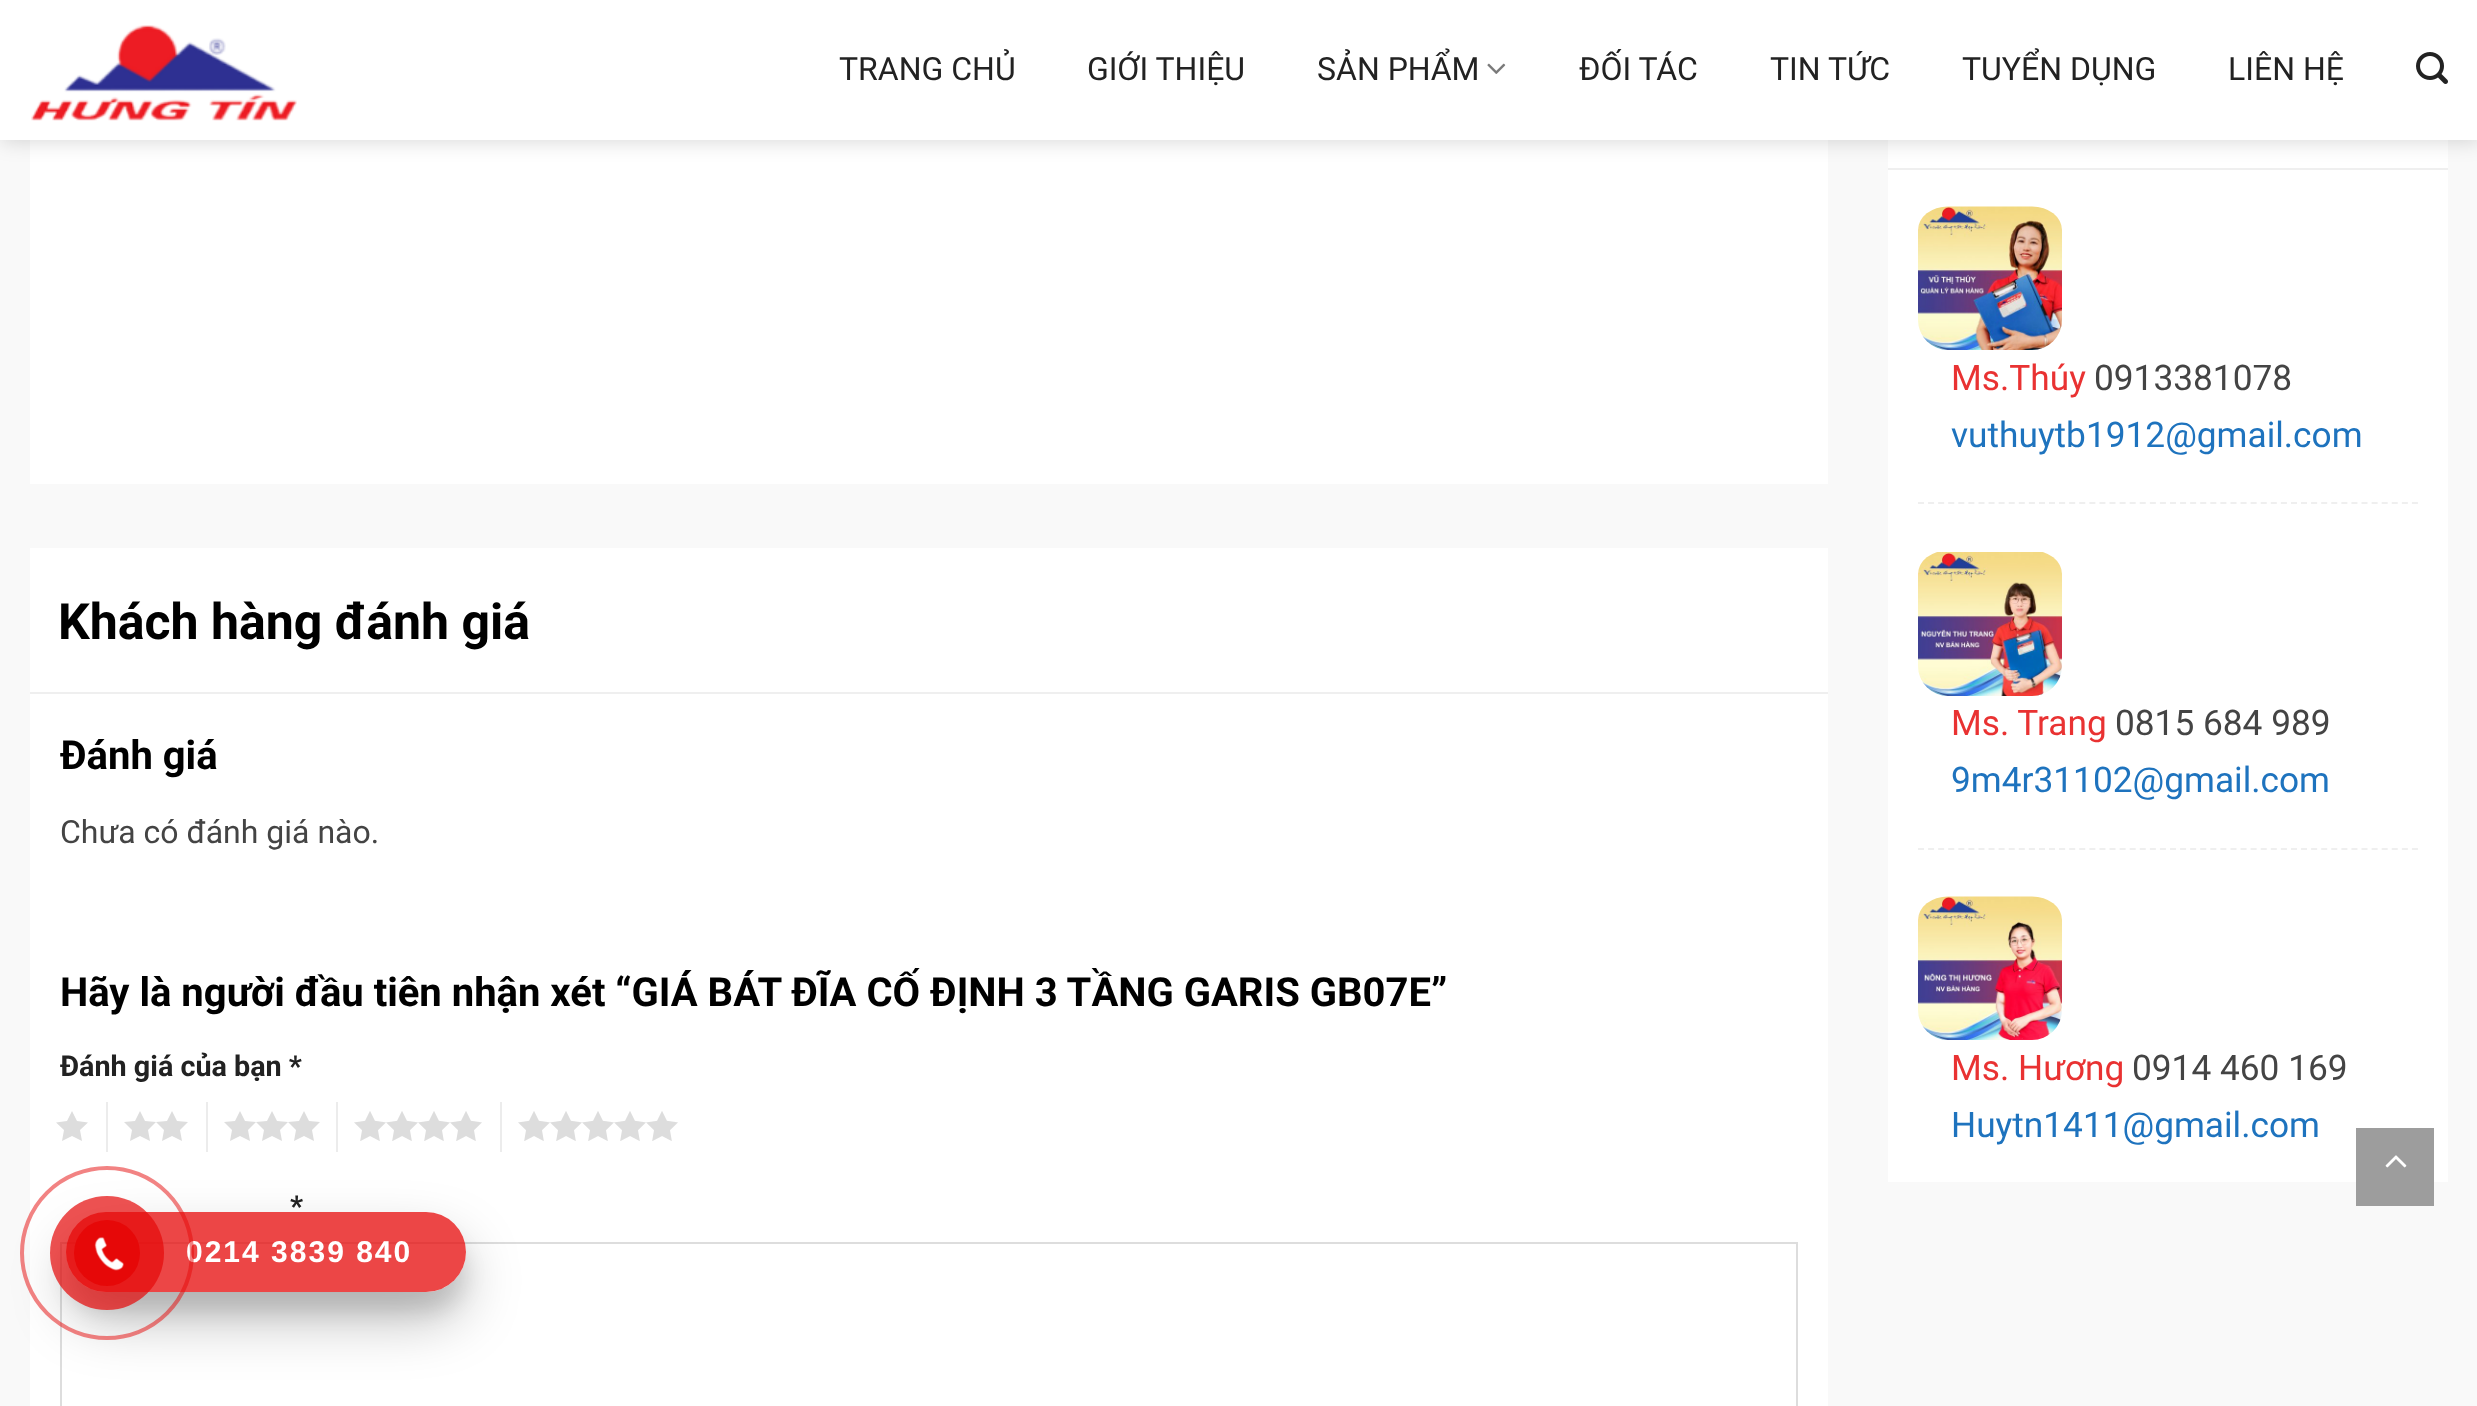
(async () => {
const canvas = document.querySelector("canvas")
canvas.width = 2477
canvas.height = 1406
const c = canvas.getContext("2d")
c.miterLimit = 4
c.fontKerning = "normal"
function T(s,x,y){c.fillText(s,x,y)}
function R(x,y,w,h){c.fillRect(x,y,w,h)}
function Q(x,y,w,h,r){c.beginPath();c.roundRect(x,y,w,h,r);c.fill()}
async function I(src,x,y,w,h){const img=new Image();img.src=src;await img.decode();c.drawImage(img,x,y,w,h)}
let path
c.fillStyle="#f9f9f9"
R(0,0,2477,1406)
c.fillStyle="#fff"
R(30,140,1798,344)
R(1888,140,560,28)
c.fillStyle="#efefef"
R(1888,168,560,2)
c.fillStyle="#fff"
R(1888,170,560,1012)
c.fillStyle="#00000026"
c.filter="blur(10px)"
c.beginPath()
c.rect(2,2,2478,140)
c.fill()
c.filter="none"
c.fillStyle="#fff"
R(0,0,2477,140)
await I("1.png",31,25,266,96)
c.font="32px Roboto"
c.fillStyle="#222"
T("TRANG CHỦ",839,80)
T("GIỚI THIỆU",1087,80)
T("SẢN PHẨM",1317,80)
await I("2.png",1487,63,19,11)
T("ĐỐI TÁC",1579,80)
T("TIN TỨC",1770,80)
T("TUYỂN DỤNG",1962,80)
T("LIÊN HỆ",2228,80)
await I("3.png",2416,52,32,32)
c.fillStyle="#fff"
R(30,548,1798,144)
c.fillStyle="#efefef"
R(30,692,1798,2)
c.font="bold 50px Roboto"
c.fillStyle="#000"
T("Khách hàng đánh giá",58,639)
c.fillStyle="#fff"
R(30,694,1798,712)
c.font="bold 40px Roboto"
c.fillStyle="#000"
T("Đánh giá",60,769)
c.font="32px Roboto"
c.fillStyle="#444"
T("Chưa có đánh giá nào.",60,843)
c.font="bold 40px Roboto"
c.fillStyle="#000"
T("Hãy là người đầu tiên nhận xét “GIÁ BÁT ĐĨA CỐ ĐỊNH 3 TẦNG GARIS GB07E”",60,1006)
c.font="bold 28.75px Roboto"
c.fillStyle="#222"
T("Đánh giá của bạn *",60,1076)
c.fillStyle="#ddd"
path = new Path2D("M88 1122.5l-11-1.5l-5-10l-5 10l-11 1.5l8 7.5l-2 11l10-5l10 5l-2-11z")
c.fill(path)
c.fillStyle="#ececec"
R(106,1102,2,50)
c.fillStyle="#ddd"
path = new Path2D("M156 1122l-11-1l-5-10l-5 10l-11 1l8 8l-2 11l10-5l10 5l-2-11zm32 0l-11-1l-5-10l-5 10l-11 1l8 8l-2 11l10-5l10 5l-2-11z")
c.fill(path)
c.fillStyle="#ececec"
R(206,1102,2,50)
c.fillStyle="#ddd"
path = new Path2D("M256 1122l-11-1l-5-10l-5 10l-11 1l8 8l-2 11l10-5l10 5l-2-11zm32 0l-11-1l-5-10l-5 10l-11 1l8 8l-2 11l10-5l10 5l-2-11zm32 0l-11-1l-5-10l-5 10l-11 1l8 8l-2 11l10-5l10 5l-2-11z")
c.fill(path)
c.fillStyle="#ececec"
R(336,1102,2,50)
await I("4.png",354,1111,128,30)
R(500,1102,2,50)
await I("5.png",518,1111,160,30)
c.fillStyle="#222"
T("*",290,1216)
c.strokeStyle="#ddd"
c.lineWidth=2
c.strokeRect(61,1243,1736,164)
path = new Path2D("M1918 503h500")
c.strokeStyle="#efefef"
c.setLineDash([6,4.08])
c.stroke(path)
await I("6.png",1918,206,144,144)
c.font="35.25px Roboto"
c.fillStyle="#e93232"
T("Ms.Thúy",1951,390)
c.fillStyle="#444"
T("0913381078",2094,390)
c.fillStyle="#1e73be"
T("vuthuytb1912@gmail.com",1951,447)
path = new Path2D("M1918 849h500")
c.stroke(path)
await I("7.png",1918,552,144,144)
c.fillStyle="#e93232"
T("Ms. Trang",1951,735)
c.fillStyle="#444"
T("0815 684 989",2115,735)
c.fillStyle="#1e73be"
T("9m4r31102@gmail.com",1951,792)
await I("8.png",1918,896,144,144)
c.fillStyle="#e93232"
T("Ms. Hương",1951,1080)
c.fillStyle="#444"
T("0914 460 169",2132,1080)
c.fillStyle="#1e73be"
T("Huytn1411@gmail.com",1951,1137)
c.fillStyle="#9d9d9d"
R(2356,1128,78,78)
await I("9.png",2385,1155,22,13)
c.save()
path = new Path2D("M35 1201h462v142h-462zm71 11h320c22 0 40 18 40 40c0 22-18 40-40 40h-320c-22 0-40-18-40-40c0-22 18-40 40-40z")
c.clip(path,"evenodd")
c.fillStyle="#0000001a"
c.filter="blur(10px)"
c.beginPath()
c.roundRect(66,1232,400,80,40)
c.fill()
c.filter="none"
c.restore()
c.save()
path = new Path2D("M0 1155h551v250h-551zm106 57h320c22 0 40 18 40 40c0 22-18 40-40 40h-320c-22 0-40-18-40-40c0-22 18-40 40-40z")
c.clip(path,"evenodd")
c.fillStyle="#00000040"
c.filter="blur(28px)"
c.beginPath()
c.roundRect(66,1240,400,80,40)
c.fill()
c.filter="none"
c.restore()
c.fillStyle="#e60808bf"
Q(66,1212,400,80,40)
c.letterSpacing="2px"
c.font="bold 30px Liberation Sans"
c.fillStyle="#fff"
T("0214 3839 840",186,1262)
c.beginPath()
c.arc(107,1253,85,0,7)
c.strokeStyle="#e6080880"
c.lineWidth=4
c.setLineDash([])
c.stroke()
c.fillStyle="#e60808b3"
c.beginPath()
c.arc(107,1253,57,0,7)
c.fill()
c.fillStyle="#e60808"
c.beginPath()
c.arc(107,1253,33,0,7)
c.fill()
await I("10.png",94,1237,30,34)
})()
